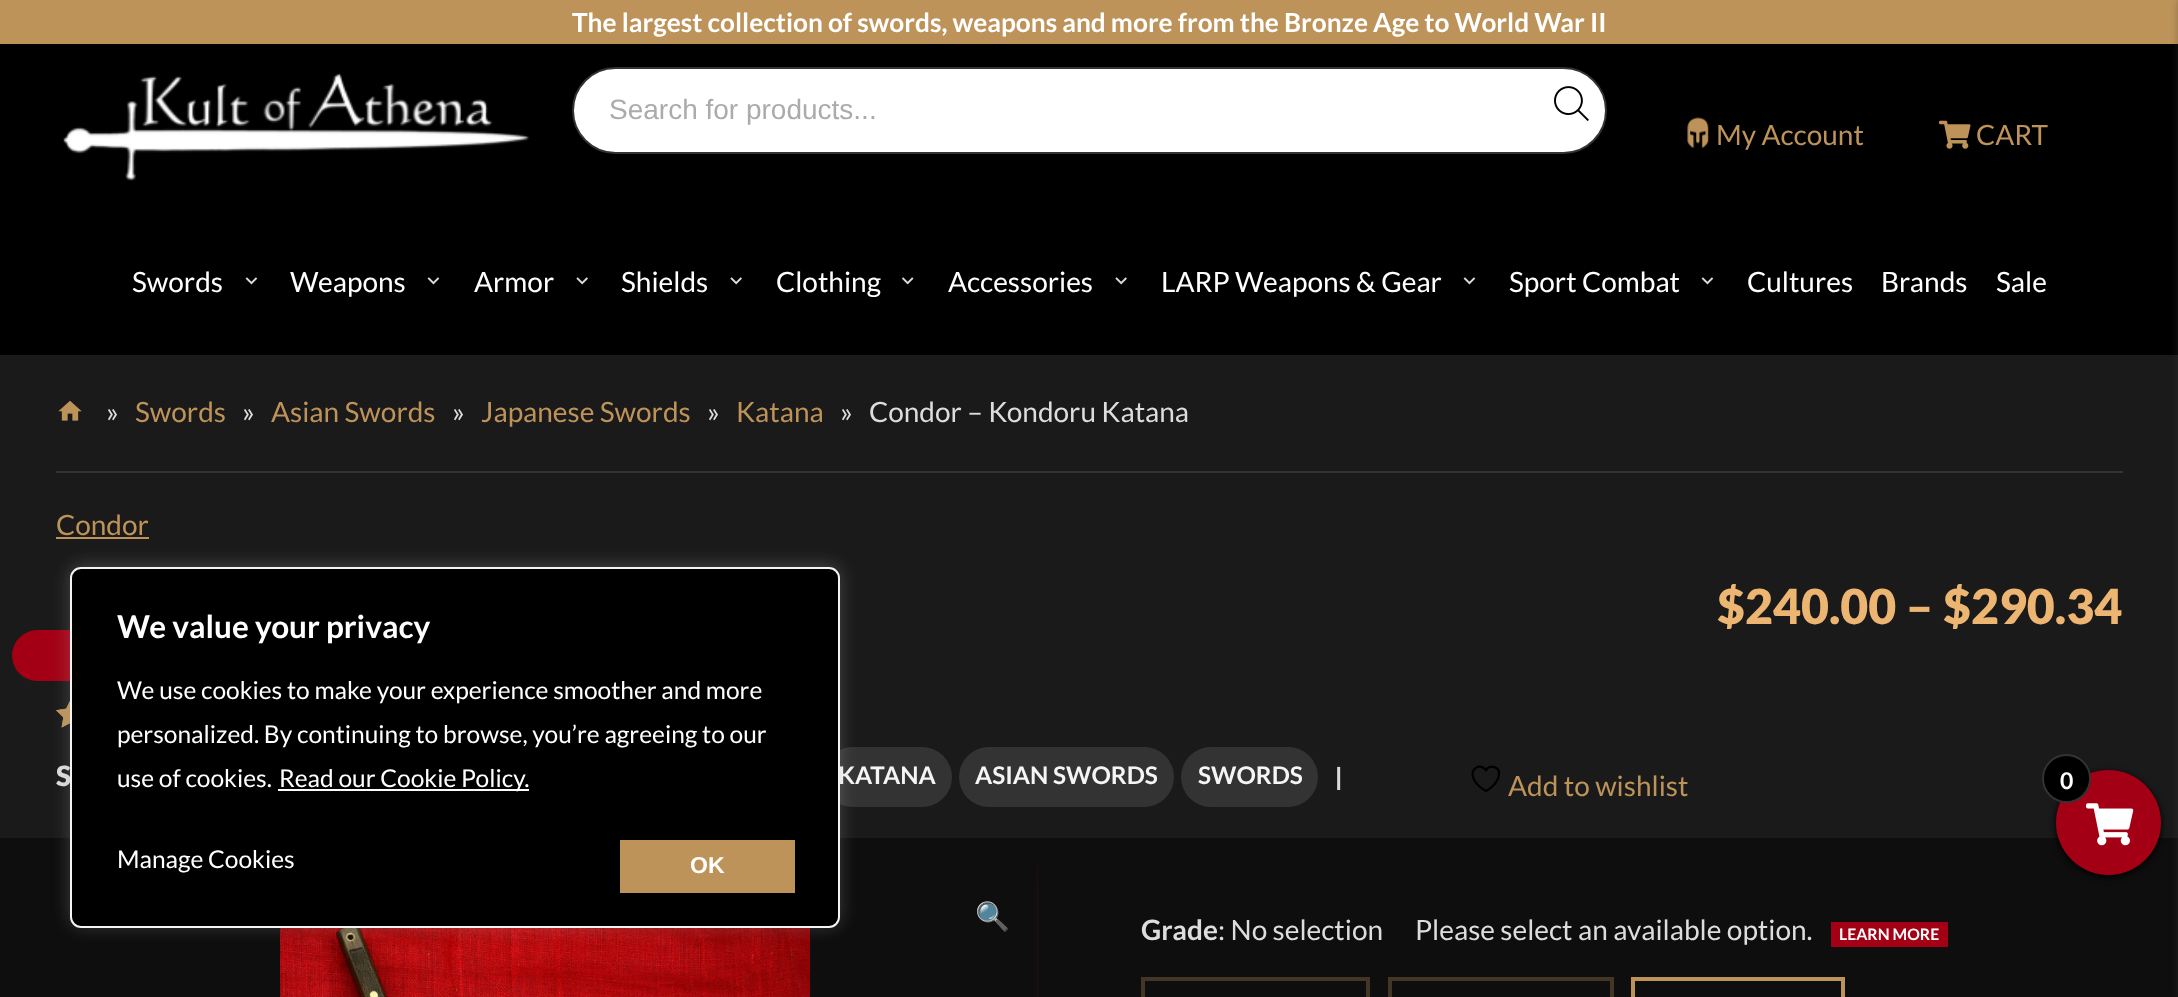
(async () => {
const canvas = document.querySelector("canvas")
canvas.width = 2178
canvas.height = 997
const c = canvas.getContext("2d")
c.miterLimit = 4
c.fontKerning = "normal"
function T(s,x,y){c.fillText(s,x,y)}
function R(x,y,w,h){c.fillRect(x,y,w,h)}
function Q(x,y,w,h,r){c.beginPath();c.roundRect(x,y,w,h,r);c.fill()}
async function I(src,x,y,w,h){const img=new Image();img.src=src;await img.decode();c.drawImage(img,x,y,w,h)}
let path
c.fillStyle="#1a1a1a"
R(0,0,2178,997)
c.fillStyle="#be9359"
R(0,0,2178,44)
c.font="bold 26.25px Lato"
c.fillStyle="#fff"
T("The largest collection of swords, weapons and more from the Bronze Age to World War II",572,32)
c.fillStyle="#000"
R(0,44,2178,311)
await I("1.png",63,73,467,108)
c.fillStyle="#fff"
c.beginPath()
c.roundRect(573,68,1033,85,42.5)
c.fill()
c.strokeStyle="#333"
c.lineWidth=2
c.stroke()
c.font="28px Liberation Sans"
c.fillStyle="#ababab"
T("Search for products...",609,119)
await I("2.png",1554,86,35,35)
await I("3.png",1687,117,22,31)
c.font="28px Lato"
c.fillStyle="#be9359"
T("My Account",1716,145)
await I("4.png",1939,120,32,29)
T("CART",1976,145)
c.fillStyle="#fff"
T("Swords",132,292)
await I("5.png",245,277,13,8)
T("Weapons",290,292)
await I("5.png",427,277,13,8)
T("Armor",474,292)
await I("6.png",576,277,12,8)
T("Shields",621,292)
await I("6.png",730,277,12,8)
T("Clothing",776,292)
await I("7.png",901,277,13,8)
T("Accessories",948,292)
await I("6.png",1115,277,12,8)
T("LARP Weapons & Gear",1161,292)
await I("5.png",1463,277,13,8)
T("Sport Combat",1509,292)
await I("5.png",1701,277,13,8)
T("Cultures",1747,292)
T("Brands",1881,292)
T("Sale",1996,292)
c.fillStyle="#0e0e0e"
R(0,838,2178,159)
c.fillStyle="#333"
R(56,471,2067,2)
await I("8.png",58,400,24,21)
c.fillStyle="#ddd"
T("»",106,422)
c.fillStyle="#be9359"
T("Swords",135,422)
c.fillStyle="#ddd"
T("»",242,422)
c.fillStyle="#be9359"
T("Asian Swords",271,422)
c.fillStyle="#ddd"
T("»",452,422)
c.fillStyle="#be9359"
T("Japanese Swords",481,422)
c.fillStyle="#ddd"
T("»",707,422)
c.fillStyle="#be9359"
T("Katana",736,422)
c.fillStyle="#ddd"
T("»",840,422)
T("Condor – Kondoru Katana",869,422)
c.fillStyle="#be9359"
T("Condor",56,535)
R(56,537,93,2)
c.font="900 48.25px Lato"
c.fillStyle="#edb572"
T("$240.00 – $290.34",1717,624)
c.fillStyle="#a30015"
c.beginPath()
c.roundRect(12,630,91,51,[25.5,0,0,25.5])
c.fill()
await I("9.png",56,701,14,27)
await I("10.png",56,701,14,27)
await I("11.png",56,701,14,27)
c.font="900 28px Lato"
c.fillStyle="#ddd"
T("S",56,786)
c.fillStyle="#333"
Q(823,747,129,60,30)
c.font="bold 24.25px Lato"
c.fillStyle="#f5f5f5"
T("KATANA",838,784)
c.fillStyle="#333"
Q(959,747,215,60,30)
c.fillStyle="#f5f5f5"
T("ASIAN SWORDS",975,784)
c.fillStyle="#333"
Q(1181,747,137,60,30)
c.fillStyle="#f5f5f5"
T("SWORDS",1198,784)
c.font="900 24.5px Lato"
c.fillStyle="#ddd"
T("|",1335,786)
path = new Path2D("M1499 773.5c0-7.5-10.5-9-13-3c-4-8-18.5-3-11.5 10c2.5 4.5 7 8 11.5 10.5c0 0 13-7 13-17.5z")
c.strokeStyle="#000"
c.lineWidth=2.2
c.lineCap="round"
c.lineJoin="round"
c.stroke(path)
c.font="28px Lato"
c.fillStyle="#be9359"
T("Add to wishlist",1508,796)
await I("12.png",280,928,530,69)
await I("13.png",1037,866,1,131)
c.font="28px Noto Color Emoji"
T("🔍",975,926)
c.font="bold 28px Lato"
c.fillStyle="#ddd"
T("Grade",1141,940)
c.font="28px Lato"
T(": No selection",1218,940)
T("Please select an available option.",1415,940)
c.fillStyle="#a30015"
R(1831,922,117,25)
c.font="bold 15.75px Lato"
c.fillStyle="#fff"
T("LEARN MORE",1839,940)
c.strokeStyle="#433625"
c.lineWidth=4
c.lineJoin="miter"
c.strokeRect(1143,979,225,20)
c.strokeRect(1390,979,222,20)
c.strokeStyle="#be9359"
c.strokeRect(1633,979,210,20)
c.fillStyle="#acabab4d"
c.filter="blur(9px)"
c.beginPath()
c.roundRect(70,565,770,361,11)
c.fill()
c.filter="none"
c.fillStyle="#000"
c.beginPath()
c.roundRect(71,568,768,359,10)
c.fill()
c.strokeStyle="#f4f4f4"
c.lineWidth=2
c.stroke()
c.font="bold 31.5px Lato"
c.fillStyle="#fff"
T("We value your privacy",117,638)
c.font="24.5px Lato"
T("We use cookies to make your experience smoother and more",117,699)
T("personalized. By continuing to browse, you’re agreeing to our",117,743)
T("use of cookies.",117,787)
c.fillStyle="#fdfdfd"
R(278,789,251,2)
c.fillStyle="#fff"
T("Read our Cookie Policy.",279,787)
T("Manage Cookies",117,868)
c.fillStyle="#be9359"
R(620,840,175,53)
c.font="bold 23px Liberation Sans"
c.fillStyle="#fff"
T("OK",690,873)
c.fillStyle="#42414180"
c.filter="blur(4.5px)"
c.beginPath()
c.rect(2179,0,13,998)
c.fill()
c.filter="none"
c.fillStyle="#000"
c.filter="blur(3.5px)"
c.beginPath()
c.roundRect(2056,772,105,105,52.5)
c.fill()
c.filter="none"
c.fillStyle="#a30015"
c.beginPath()
c.arc(2108.5,822.5,52.5,0,7)
c.fill()
c.fillStyle="#000"
c.beginPath()
c.arc(2066.5,778.5,23.5,0,7)
c.fill()
c.strokeStyle="#333"
c.stroke()
c.font="bold 23px Lato"
c.fillStyle="#fff"
T("0",2060,789)
await I("14.png",2086,803,48,43)
})()
